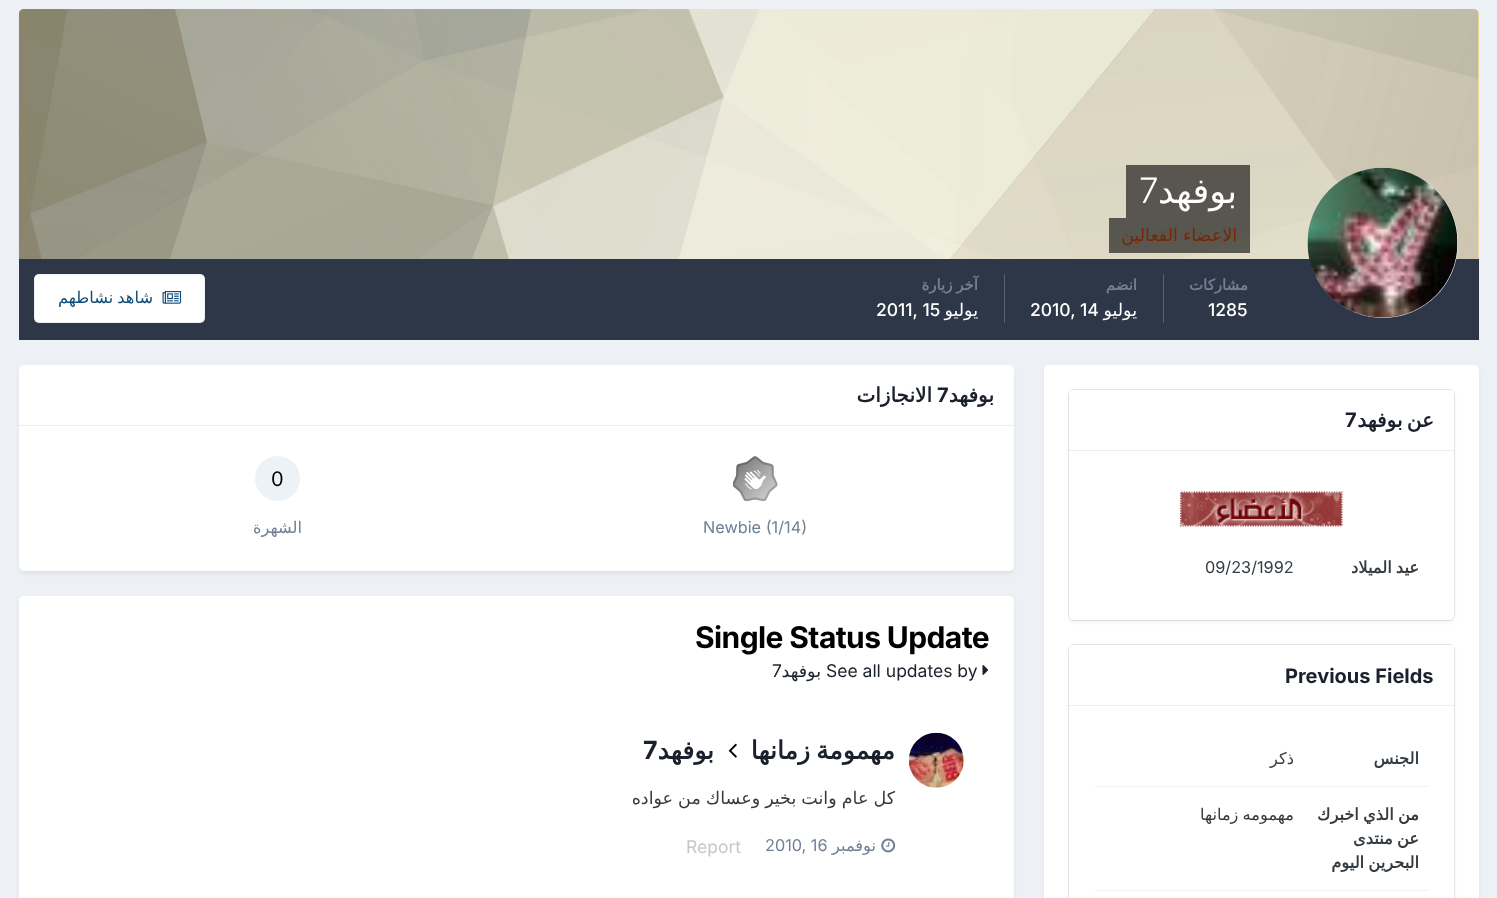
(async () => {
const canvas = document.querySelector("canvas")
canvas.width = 1497
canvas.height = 898
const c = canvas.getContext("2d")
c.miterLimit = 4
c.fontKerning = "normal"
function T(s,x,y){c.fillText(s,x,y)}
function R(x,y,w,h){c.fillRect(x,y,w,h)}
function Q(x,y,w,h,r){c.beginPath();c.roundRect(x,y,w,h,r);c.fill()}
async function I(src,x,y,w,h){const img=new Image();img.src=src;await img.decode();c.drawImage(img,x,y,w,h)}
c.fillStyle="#edf0f4"
R(0,0,1497,898)
c.fillStyle="#fff099"
c.beginPath()
c.roundRect(19,9,1460,250,[5,5,0,0])
c.fill()
await I("1.png",18,9,1461,250)
c.fillStyle="#2d3748"
R(19,259,1460,81)
c.fillStyle="#fff"
c.beginPath()
c.arc(1383,243,75,0,7)
c.fill()
await I("2.png",1307,167,151,151)
c.fillStyle="#58564e"
R(1126,165,124,53)
c.direction="rtl"
c.font="35px DejaVu Sans"
c.fillStyle="#fff"
T("بوفهد",1237,203)
c.direction="ltr"
c.font="300 35px Inter"
T("7",1139,203)
c.fillStyle="#00000099"
R(1109,218,141,35)
c.wordSpacing="-0.5px"
c.direction="rtl"
c.font="17.5px DejaVu Sans"
c.fillStyle="#7b2503"
T("الاعضاء الفعالين",1237,241)
c.fillStyle="#575f6d"
R(1163,274,1,49)
c.wordSpacing="0px"
c.font="bold 15px DejaVu Sans"
c.fillStyle="#718096"
T("مشاركات",1248,290)
c.direction="ltr"
c.font="500 17.5px Inter"
c.fillStyle="#fff"
T("1285",1208,316)
c.fillStyle="#575f6d"
R(1004,274,1,49)
c.direction="rtl"
c.font="bold 15px DejaVu Sans"
c.fillStyle="#718096"
T("انضم",1137,290)
c.font="17.5px DejaVu Sans"
c.fillStyle="#fff"
T("يوليو",1137,316)
c.direction="ltr"
c.font="500 17.5px Inter"
T("2010, 14",1030,316)
c.wordSpacing="-1px"
c.direction="rtl"
c.font="bold 15px DejaVu Sans"
c.fillStyle="#718096"
T("آخر زيارة",978,290)
c.wordSpacing="0px"
c.font="17.5px DejaVu Sans"
c.fillStyle="#fff"
T("يوليو",978,316)
c.direction="ltr"
c.font="500 17.5px Inter"
T("2011, 15",876,316)
Q(34,274,171,49,5)
c.beginPath()
c.roundRect(34.5,274.5,170,48,4.5)
c.strokeStyle="#0e4c7912"
c.stroke()
await I("3.png",162,291,20,13)
c.wordSpacing="-1px"
c.direction="rtl"
c.font="16.25px DejaVu Sans"
c.fillStyle="#0e4c79"
T("شاهد نشاطهم",153,303)
c.fillStyle="#2d37481a"
c.filter="blur(2.5px)"
c.beginPath()
c.roundRect(1045,369,433,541,4)
c.fill()
c.filter="none"
c.fillStyle="#fff"
Q(1044,365,435,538,5)
c.fillStyle="#2d37481a"
c.filter="blur(2.5px)"
c.beginPath()
c.roundRect(1070,394,383,227,4)
c.fill()
c.filter="none"
c.beginPath()
c.roundRect(1068.5,389.5,386,231,5.5)
c.strokeStyle="#71809633"
c.stroke()
c.fillStyle="#fff"
Q(1069,390,385,230,5)
c.beginPath()
c.roundRect(1069,390,385,61,[5,5,0,0])
c.fill()
c.fillStyle="#eaecef"
R(1069,450,385,1)
c.wordSpacing="-2px"
c.font="bold 20px DejaVu Sans"
c.fillStyle="#1a202c"
T("عن بوفهد",1434,427)
c.wordSpacing="0px"
c.direction="ltr"
c.font="bold 20px Inter"
T("7",1345,427)
await I("4.png",1180,491,163,36)
c.wordSpacing="-1px"
c.direction="rtl"
c.font="bold 16.25px DejaVu Sans"
c.fillStyle="#353c41"
T("عيد الميلاد",1419,573)
c.wordSpacing="0px"
c.direction="ltr"
c.font="16.25px Inter"
T("09/23/1992",1205,573)
c.fillStyle="#2d37481a"
c.filter="blur(2.5px)"
c.beginPath()
c.roundRect(1070,649,383,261,4)
c.fill()
c.filter="none"
c.beginPath()
c.roundRect(1068.5,644.5,386,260,5.5)
c.stroke()
c.fillStyle="#fff"
Q(1069,645,385,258,5)
c.beginPath()
c.roundRect(1069,645,385,61,[5,5,0,0])
c.fill()
c.fillStyle="#eaecef"
R(1069,705,385,1)
c.font="bold 20px Inter"
c.fillStyle="#1a202c"
T("Previous Fields",1285,683)
c.fillStyle="#f1f2f5"
R(1094,786,335,1)
c.direction="rtl"
c.font="bold 16.25px DejaVu Sans"
c.fillStyle="#353c41"
T("الجنس",1419,764)
c.font="16.25px DejaVu Sans"
T("ذكر",1294,764)
c.fillStyle="#f1f2f5"
R(1094,890,335,1)
c.wordSpacing="-1px"
c.font="bold 16.25px DejaVu Sans"
c.fillStyle="#353c41"
T("من الذي اخبرك",1419,820)
T("عن منتدى",1419,844)
T("البحرين اليوم",1419,868)
c.font="16.25px DejaVu Sans"
T("مهمومه زمانها",1294,820)
c.fillStyle="#2d37481a"
c.filter="blur(2.5px)"
c.beginPath()
c.roundRect(20,369,993,204,4)
c.fill()
c.filter="none"
c.fillStyle="#fff"
Q(19,365,995,206,5)
c.beginPath()
c.roundRect(19,365,995,61,[5,5,0,0])
c.fill()
c.fillStyle="#eaecef"
R(19,425,995,1)
c.wordSpacing="0px"
c.font="bold 20px DejaVu Sans"
c.fillStyle="#1a202c"
T("بوفهد",994,402)
c.direction="ltr"
c.font="bold 20px Inter"
T("7",937,402)
c.direction="rtl"
c.font="bold 20px DejaVu Sans"
T("الانجازات",932,402)
await I("5.png",733,456,45,45)
c.direction="ltr"
c.font="16.25px Inter"
c.fillStyle="#718096"
T("Newbie (1/14)",703,533)
c.fillStyle="#edf2f7"
c.beginPath()
c.arc(277.5,478.5,22.5,0,7)
c.fill()
c.font="20px Inter"
c.fillStyle="#000"
T("0",271,486)
c.direction="rtl"
c.font="16.25px DejaVu Sans"
c.fillStyle="#718096"
T("الشهرة",302,533)
c.fillStyle="#2d37481a"
c.filter="blur(2.5px)"
c.beginPath()
c.roundRect(20,600,993,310,4)
c.fill()
c.filter="none"
c.fillStyle="#fff"
Q(19,596,995,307,5)
c.letterSpacing="-0.6px"
c.direction="ltr"
c.font="bold 30px Inter"
c.fillStyle="#000"
T("Single Status Update",695,648)
await I("6.png",982,665,6,10)
c.letterSpacing="0px"
c.font="17.5px Inter"
c.fillStyle="#1a202c"
T("See all updates by",826,677)
c.direction="rtl"
c.font="17.5px DejaVu Sans"
T("بوفهد",821,677)
c.direction="ltr"
c.font="17.5px Inter"
T("7",772,677)
await I("7.png",908,732,56,56)
c.wordSpacing="-2px"
c.direction="rtl"
c.font="bold 25px DejaVu Sans"
T("مهمومة زمانها",895,759)
await I("8.png",728,743,9,15)
c.wordSpacing="0px"
T("بوفهد",714,759)
c.direction="ltr"
c.font="bold 25px Inter"
T("7",643,759)
c.wordSpacing="-0.5px"
c.direction="rtl"
c.font="17.5px DejaVu Sans"
c.fillStyle="#353c41"
T("كل عام وانت بخير وعساك من عواده",895,804)
await I("9.png",881,838,15,15)
c.wordSpacing="0px"
c.font="16.25px DejaVu Sans"
c.fillStyle="#718096"
T("نوفمبر",876,851)
c.direction="ltr"
c.font="16.25px Inter"
T("2010, 16",765,851)
c.font="17.5px Inter"
c.fillStyle="#c6c7ca"
T("Report",686,853)
})()
